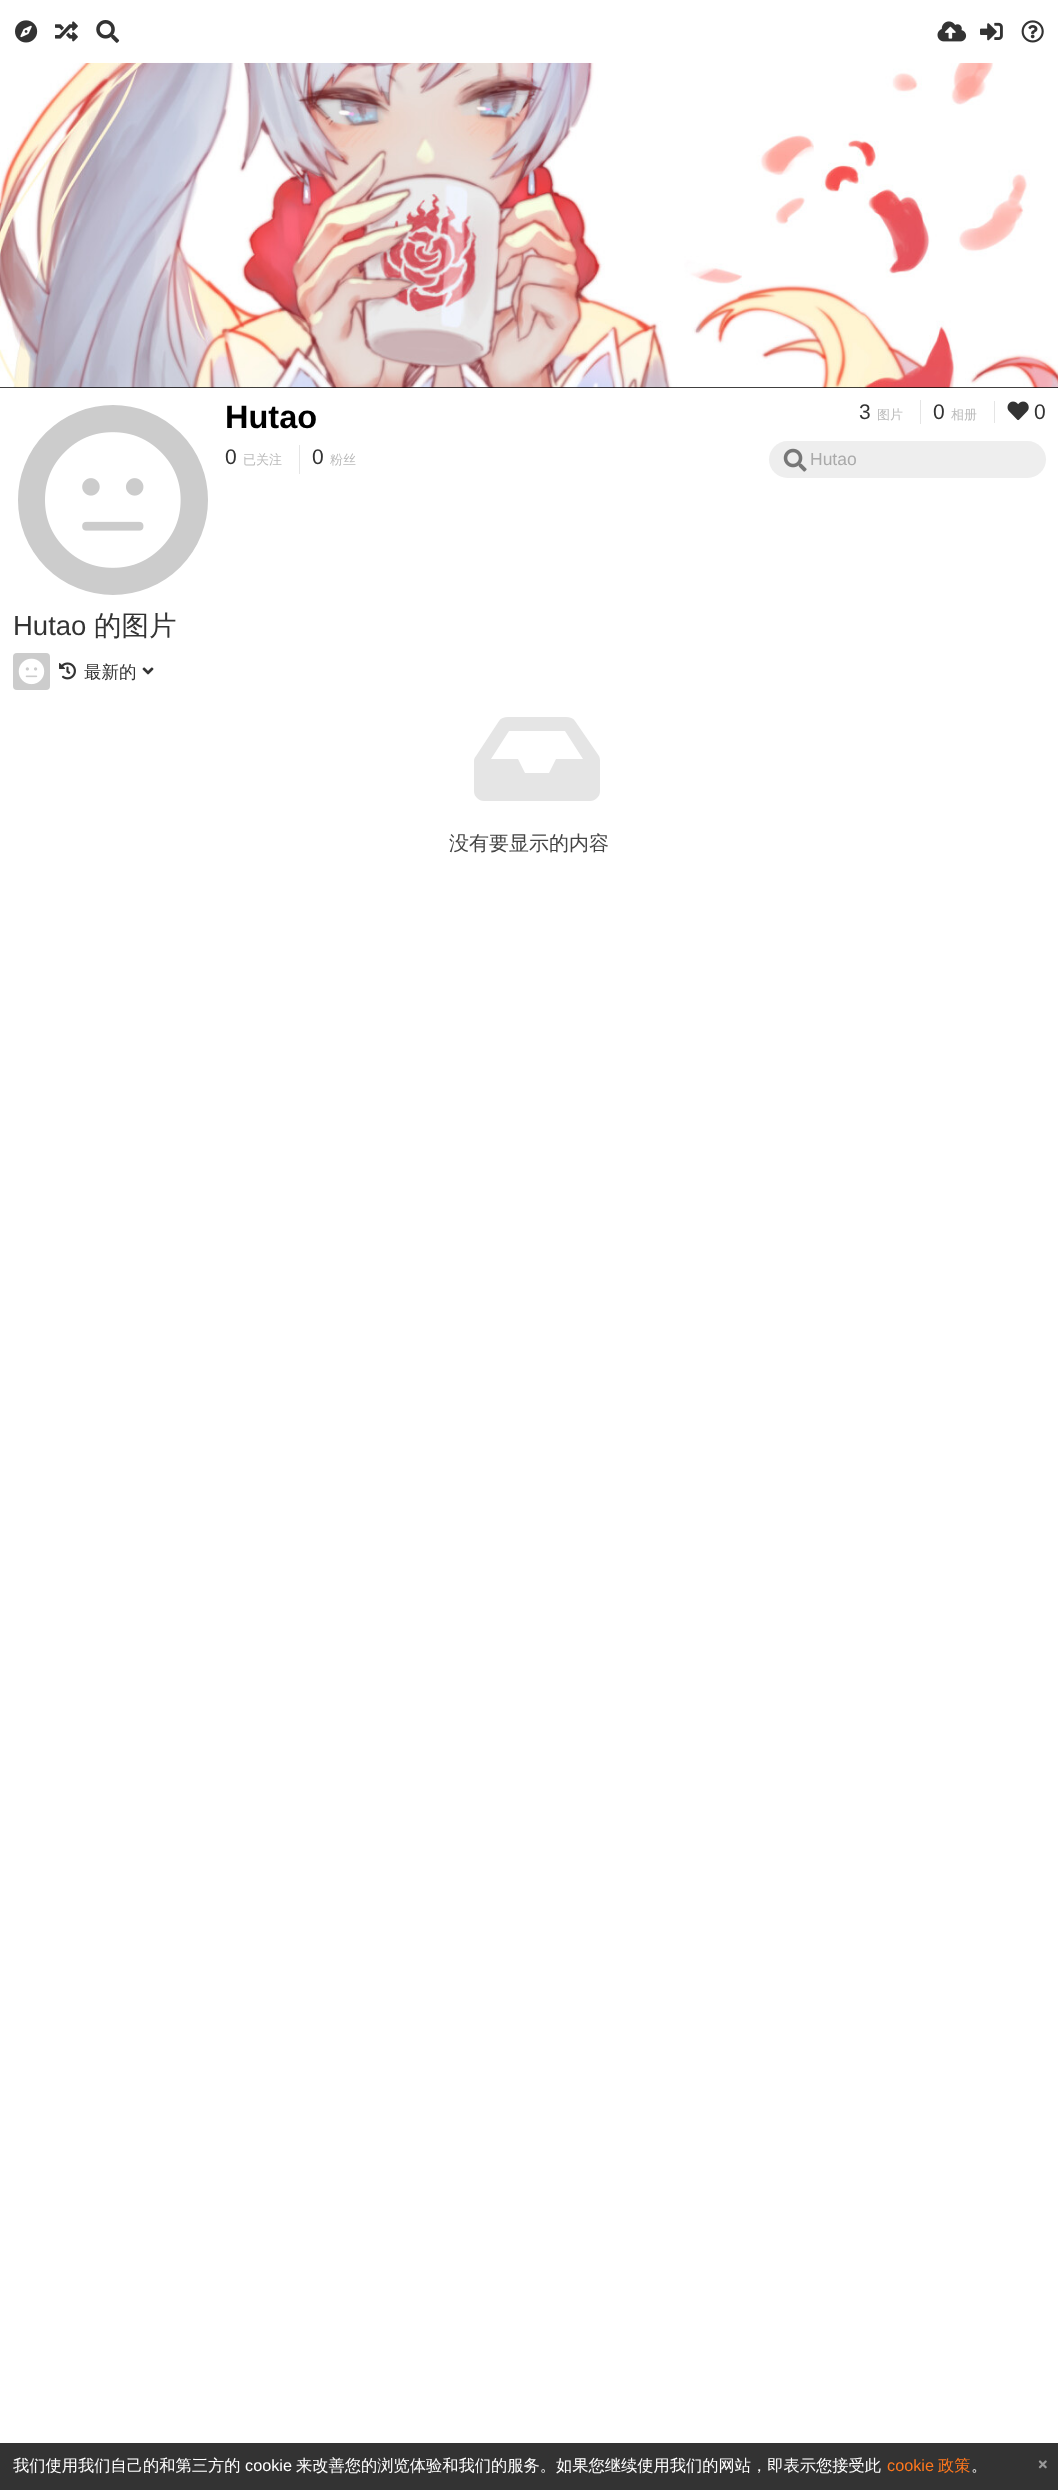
(async () => {
const canvas = document.querySelector("canvas")
canvas.width = 1058
canvas.height = 2490
const c = canvas.getContext("2d")
c.miterLimit = 4
c.fontKerning = "normal"
function T(s,x,y){c.fillText(s,x,y)}
function R(x,y,w,h){c.fillRect(x,y,w,h)}
function Q(x,y,w,h,r){c.beginPath();c.roundRect(x,y,w,h,r);c.fill()}
async function I(src,x,y,w,h){const img=new Image();img.src=src;await img.decode();c.drawImage(img,x,y,w,h)}
let path
c.fillStyle="#fff"
R(0,0,1058,2490)
await I("1.png",15,20,23,23)
await I("2.png",55,21,23,21)
await I("3.png",96,20,24,23)
await I("4.png",937,21,30,21)
await I("5.png",980,22,23,19)
await I("6.png",1021,20,23,23)
c.fillStyle="#000"
R(0,387,1058,1)
await I("7.png",0,62,1058,326)
c.fillStyle="#ffffffe6"
R(84,62,909,1)
c.fillStyle="#ccc"
c.beginPath()
c.arc(113,500,97.5,0,7)
c.fill()
c.strokeStyle="#fff"
c.lineWidth=5
c.stroke()
await I("8.png",45,432,136,136)
c.font="bold 32.5px Liberation Sans"
c.fillStyle="#000"
T("Hutao",225,428)
c.font="21px Liberation Sans"
c.fillStyle="#333"
T("0",225,464)
c.font="500 13px WenQuanYi Zen Hei"
c.fillStyle="#bbb"
T("已关注",243,464)
c.fillStyle="#e5e5e5"
R(299,445,1,29)
c.font="21px Liberation Sans"
c.fillStyle="#333"
T("0",312,464)
c.font="500 13px WenQuanYi Zen Hei"
c.fillStyle="#bbb"
T("粉丝",330,464)
c.font="21px Liberation Sans"
c.fillStyle="#333"
T("3",859,419)
c.font="500 13px WenQuanYi Zen Hei"
c.fillStyle="#bbb"
T("图片",877,419)
c.font="21px Liberation Sans"
c.fillStyle="#333"
T("0",933,419)
c.fillStyle="#e5e5e5"
R(920,400,1,24)
c.font="500 13px WenQuanYi Zen Hei"
c.fillStyle="#bbb"
T("相册",951,419)
c.fillStyle="#e5e5e5"
R(994,401,1,22)
await I("9.png",1007,401,22,20)
c.font="21px Liberation Sans"
c.fillStyle="#333"
T("0",1034,419)
c.fillStyle="#eee"
Q(769,441,277,37,18.5)
await I("10.png",783,448,24,24)
c.font="17.5px Liberation Sans"
c.fillStyle="#aaa"
T("Hutao",810,465)
c.font="27.5px Liberation Sans"
c.fillStyle="#333"
T("Hutao",13,635)
c.font="500 27.5px WenQuanYi Zen Hei"
T("的图片",94,635)
c.fillStyle="#ccc"
Q(13,653,37,37,4)
await I("11.png",18,658,27,27)
await I("12.png",59,662,17,18)
c.font="500 17.5px WenQuanYi Zen Hei"
c.fillStyle="#333"
T("最新的",84,678)
await I("13.png",142,667,12,8)
c.fillStyle="#e5e5e5"
path = new Path2D("M599 756c1 2 1 4 1 6v29c0 3-1 5-3 7c-2 2-4 3-7 3h-106c-3 0-5-1-7-3c-2-2-3-4-3-7v-29c0-2 0-4 2-6l23-35c2-3 5-4 9-4h58c4 0 7 1 9 4zm-90-25l-18 28h27l7 14h24l7-14h27l-18-28z")
c.fill(path)
c.font="500 20px WenQuanYi Zen Hei"
c.fillStyle="#444"
T("没有要显示的内容",449,850)
c.fillStyle="#333"
R(0,2443,1058,47)
c.font="500 16.25px WenQuanYi Zen Hei"
c.fillStyle="#fff"
T("我们使用我们自己的和第三方的",13,2471)
c.font="16.25px Liberation Sans"
T("cookie",245,2471)
c.font="500 16.25px WenQuanYi Zen Hei"
T("来改善您的浏览体验和我们的服务。如果您继续使用我们的网站，即表示您接受此",296,2471)
c.font="16.25px Liberation Sans"
c.fillStyle="#fe771d"
T("cookie",887,2471)
c.font="500 16.25px WenQuanYi Zen Hei"
T("政策",938,2471)
c.fillStyle="#fff"
T("。",971,2471)
await I("14.png",1038,2460,9,9)
})()
